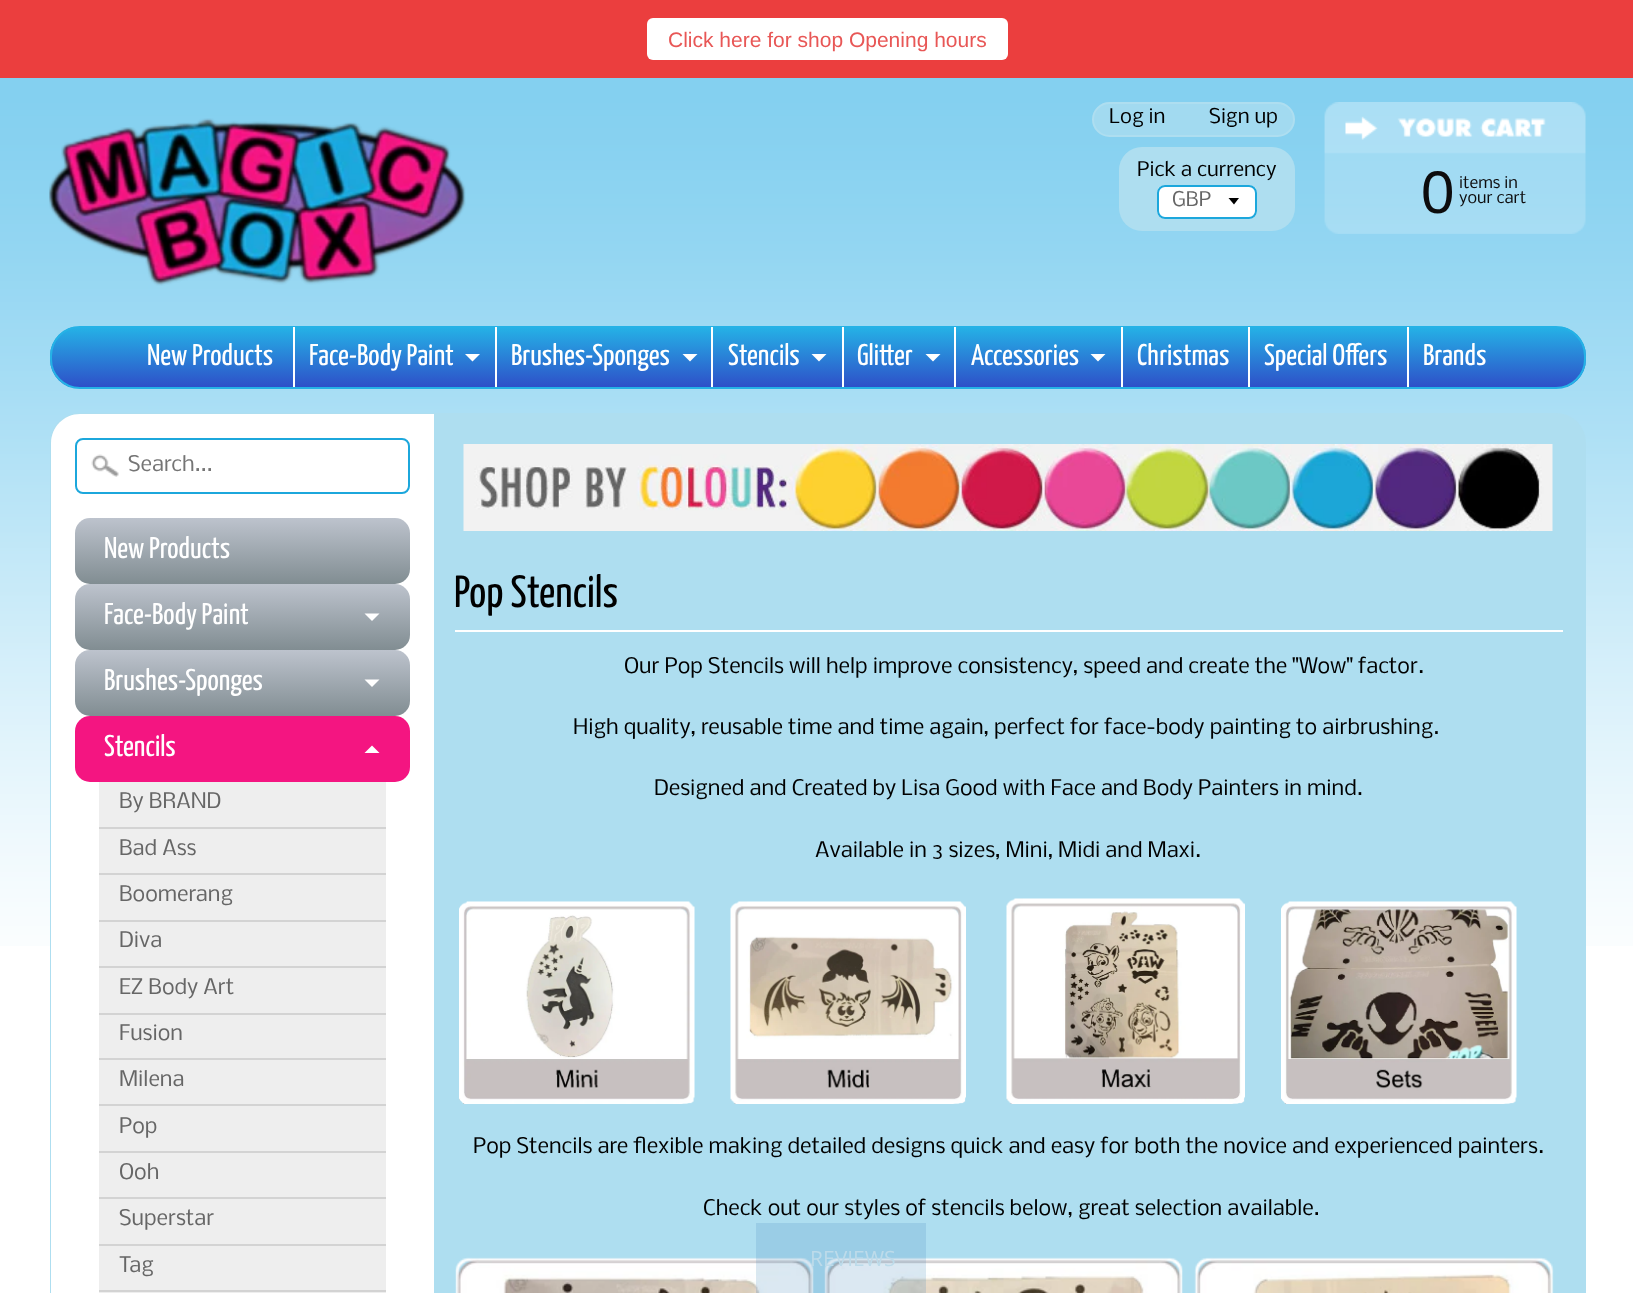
(async () => {
const canvas = document.querySelector("canvas")
canvas.width = 1633
canvas.height = 1293
const c = canvas.getContext("2d")
c.miterLimit = 4
c.fontKerning = "normal"
function T(s,x,y){c.fillText(s,x,y)}
function R(x,y,w,h){c.fillRect(x,y,w,h)}
function Q(x,y,w,h,r){c.beginPath();c.roundRect(x,y,w,h,r);c.fill()}
async function I(src,x,y,w,h){const img=new Image();img.src=src;await img.decode();c.drawImage(img,x,y,w,h)}
let gradient, path
c.fillStyle="#fff"
R(0,0,1633,1293)
await I("1.png",0,78,1633,868)
c.fillStyle="#eb3e3e"
R(0,0,1633,78)
c.fillStyle="#fff"
Q(647,18,361,42,6)
c.font="21px Liberation Sans"
c.fillStyle="#e85756"
T("Click here for shop Opening hours",668,47)
await I("2.png",49,118,417,168)
c.fillStyle="#aedef0b3"
c.beginPath()
c.roundRect(1093,103,201,33,16.5)
c.fill()
c.strokeStyle="#aedef0"
c.lineWidth=2
c.stroke()
c.font="19.25px Nobile"
c.fillStyle="#000"
T("Log in",1109,123)
T("Sign up",1209,123)
c.fillStyle="#aedef0"
Q(1119,147,176,84,23)
c.fillStyle="#000"
T("Pick a currency",1137,176)
c.fillStyle="#fff"
Q(1157,185,100,34,8)
c.fillStyle="#000"
path = new Path2D("M1228.5 198l5.5 6.5l5-6.5z")
c.fill(path)
c.beginPath()
c.roundRect(1158,186,98,32,7)
c.strokeStyle="#1ca7dc"
c.stroke()
c.fillStyle="#666"
T("GBP",1172,206)
await I("3.png",1324,102,262,132)
c.font="60px Liberation Sans"
c.fillStyle="#0d0c0d"
T("0",1421,213)
c.font="15.5px Nobile"
T("items in",1459,188)
T("your cart",1459,203)
c.save()
c.beginPath()
c.roundRect(50,326,1536,63,30)
c.clip()
gradient = c.createLinearGradient(818,327,818,387)
gradient.addColorStop(0,"#25b2e6")
gradient.addColorStop(1,"#2e50c8")
c.fillStyle = gradient
R(50,327,1536,60)
c.restore()
c.beginPath()
c.roundRect(51,327,1534,61,29)
c.strokeStyle="#25b2e6"
c.stroke()
c.font="200 30px Yanone Kaffeesatz"
c.fillStyle="#fff"
T("New Products",147,365)
R(293,327,2,60)
T("Face-Body Paint",309,365)
path = new Path2D("M465 354h15l-7.5 7.5z")
c.fill(path)
R(495,327,2,60)
T("Brushes-Sponges",511,365)
path = new Path2D("M682.5 354h15l-7.5 7.5z")
c.fill(path)
R(711,327,2,60)
T("Stencils",728,365)
path = new Path2D("M811.5 354h15l-7.5 7.5z")
c.fill(path)
R(842,327,2,60)
T("Glitter",857,365)
path = new Path2D("M925.5 354h15l-7.5 7.5z")
c.fill(path)
R(954,327,2,60)
T("Accessories",971,365)
path = new Path2D("M1090.5 354h15l-7.5 7.5z")
c.fill(path)
R(1121,327,2,60)
T("Christmas",1137,365)
R(1248,327,2,60)
T("Special Offers",1264,365)
R(1407,327,2,60)
T("Brands",1423,365)
c.fillStyle="#aedef0"
Q(50,413,1536,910,30)
c.fillStyle="#fff"
path = new Path2D("M80 414h354v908h-354c-16 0-29-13-29-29v-850c0-16 13-29 29-29z")
c.fill(path)
await I("4.png",91,454,28,23)
c.beginPath()
c.roundRect(76,439,333,54,7)
c.strokeStyle="#1ca7dc"
c.stroke()
c.font="20.4px Nobile"
c.fillStyle="#757575"
T("Search...",128,471)
gradient = c.createLinearGradient(242,518,242,584)
gradient.addColorStop(0,"#bdc3cd")
gradient.addColorStop(1,"#818d92")
c.fillStyle = gradient
Q(75,518,335,66,15)
c.font="200 30px Yanone Kaffeesatz"
c.fillStyle="#fff"
T("New Products",104,558)
gradient = c.createLinearGradient(242,584,242,650)
gradient.addColorStop(0,"#bdc3cd")
gradient.addColorStop(1,"#818d92")
c.fillStyle = gradient
Q(75,584,335,66,15)
c.fillStyle="#fff"
T("Face-Body Paint",104,624)
path = new Path2D("M364.5 613.5h15l-7.5 7.5z")
c.fill(path)
gradient = c.createLinearGradient(242,650,242,716)
gradient.addColorStop(0,"#bdc3cd")
gradient.addColorStop(1,"#818d92")
c.fillStyle = gradient
Q(75,650,335,66,15)
c.fillStyle="#fff"
T("Brushes-Sponges",104,690)
path = new Path2D("M364.5 679.5h15l-7.5 7.5z")
c.fill(path)
c.fillStyle="#f41581"
Q(75,716,335,66,15)
c.fillStyle="#fff"
T("Stencils",104,756)
path = new Path2D("M379.5 753h-15l7.5-7.5z")
c.fill(path)
c.fillStyle="#eee"
R(99,782,287,511)
c.fillStyle="#d3d3d3"
R(99,827,287,2)
c.font="20.4px Nobile"
c.fillStyle="#666"
T("By BRAND",119,808)
c.fillStyle="#d3d3d3"
R(99,873,287,2)
c.fillStyle="#666"
T("Bad Ass",119,855)
c.fillStyle="#d3d3d3"
R(99,920,287,2)
c.fillStyle="#666"
T("Boomerang",119,901)
c.fillStyle="#d3d3d3"
R(99,966,287,2)
c.fillStyle="#666"
T("Diva",119,947)
c.fillStyle="#d3d3d3"
R(99,1013,287,2)
c.fillStyle="#666"
T("EZ Body Art",119,994)
c.fillStyle="#d3d3d3"
R(99,1058,287,2)
c.fillStyle="#666"
T("Fusion",119,1040)
c.fillStyle="#d3d3d3"
R(99,1104,287,2)
c.fillStyle="#666"
T("Milena",119,1086)
c.fillStyle="#d3d3d3"
R(99,1151,287,2)
c.fillStyle="#666"
T("Pop",119,1133)
c.fillStyle="#d3d3d3"
R(99,1197,287,2)
c.fillStyle="#666"
T("Ooh",119,1179)
c.fillStyle="#d3d3d3"
R(99,1244,287,2)
c.fillStyle="#666"
T("Superstar",119,1225)
c.fillStyle="#d3d3d3"
R(99,1290,287,2)
c.fillStyle="#666"
T("Tag",119,1272)
await I("5.png",463,444,1090,87)
c.fillStyle="#fff"
R(455,630,1108,2)
c.font="200 45px Yanone Kaffeesatz"
c.fillStyle="#000"
T("Pop Stencils",454,607)
c.font="20.4px Nobile"
T("Our Pop Stencils will help improve consistency, speed and create the \"Wow\" factor.",624,673)
T("High quality, reusable time and time again, perfect for face-body painting to airbrushing.",573,734)
T("Designed and Created by Lisa Good with Face and Body Painters in mind.",654,795)
T("Available in 3 sizes, Mini, Midi and Maxi.",815,857)
await I("6.png",459,901,236,203)
await I("7.png",730,901,236,203)
await I("8.png",1006,898,239,206)
await I("9.png",1281,901,236,203)
T("Pop Stencils are flexible making detailed designs quick and easy for both the novice and experienced painters.",473,1153)
T("Check out our styles of stencils below, great selection available.",703,1215)
await I("10.png",455,1257,359,36)
await I("11.png",824,1257,359,36)
await I("12.png",1194,1257,360,36)
c.fillStyle="#498cbc33"
R(756,1223,170,70)
c.font="21px Open Sans"
c.fillStyle="#bddbea"
T("REVIEWS",810,1266)
})()
